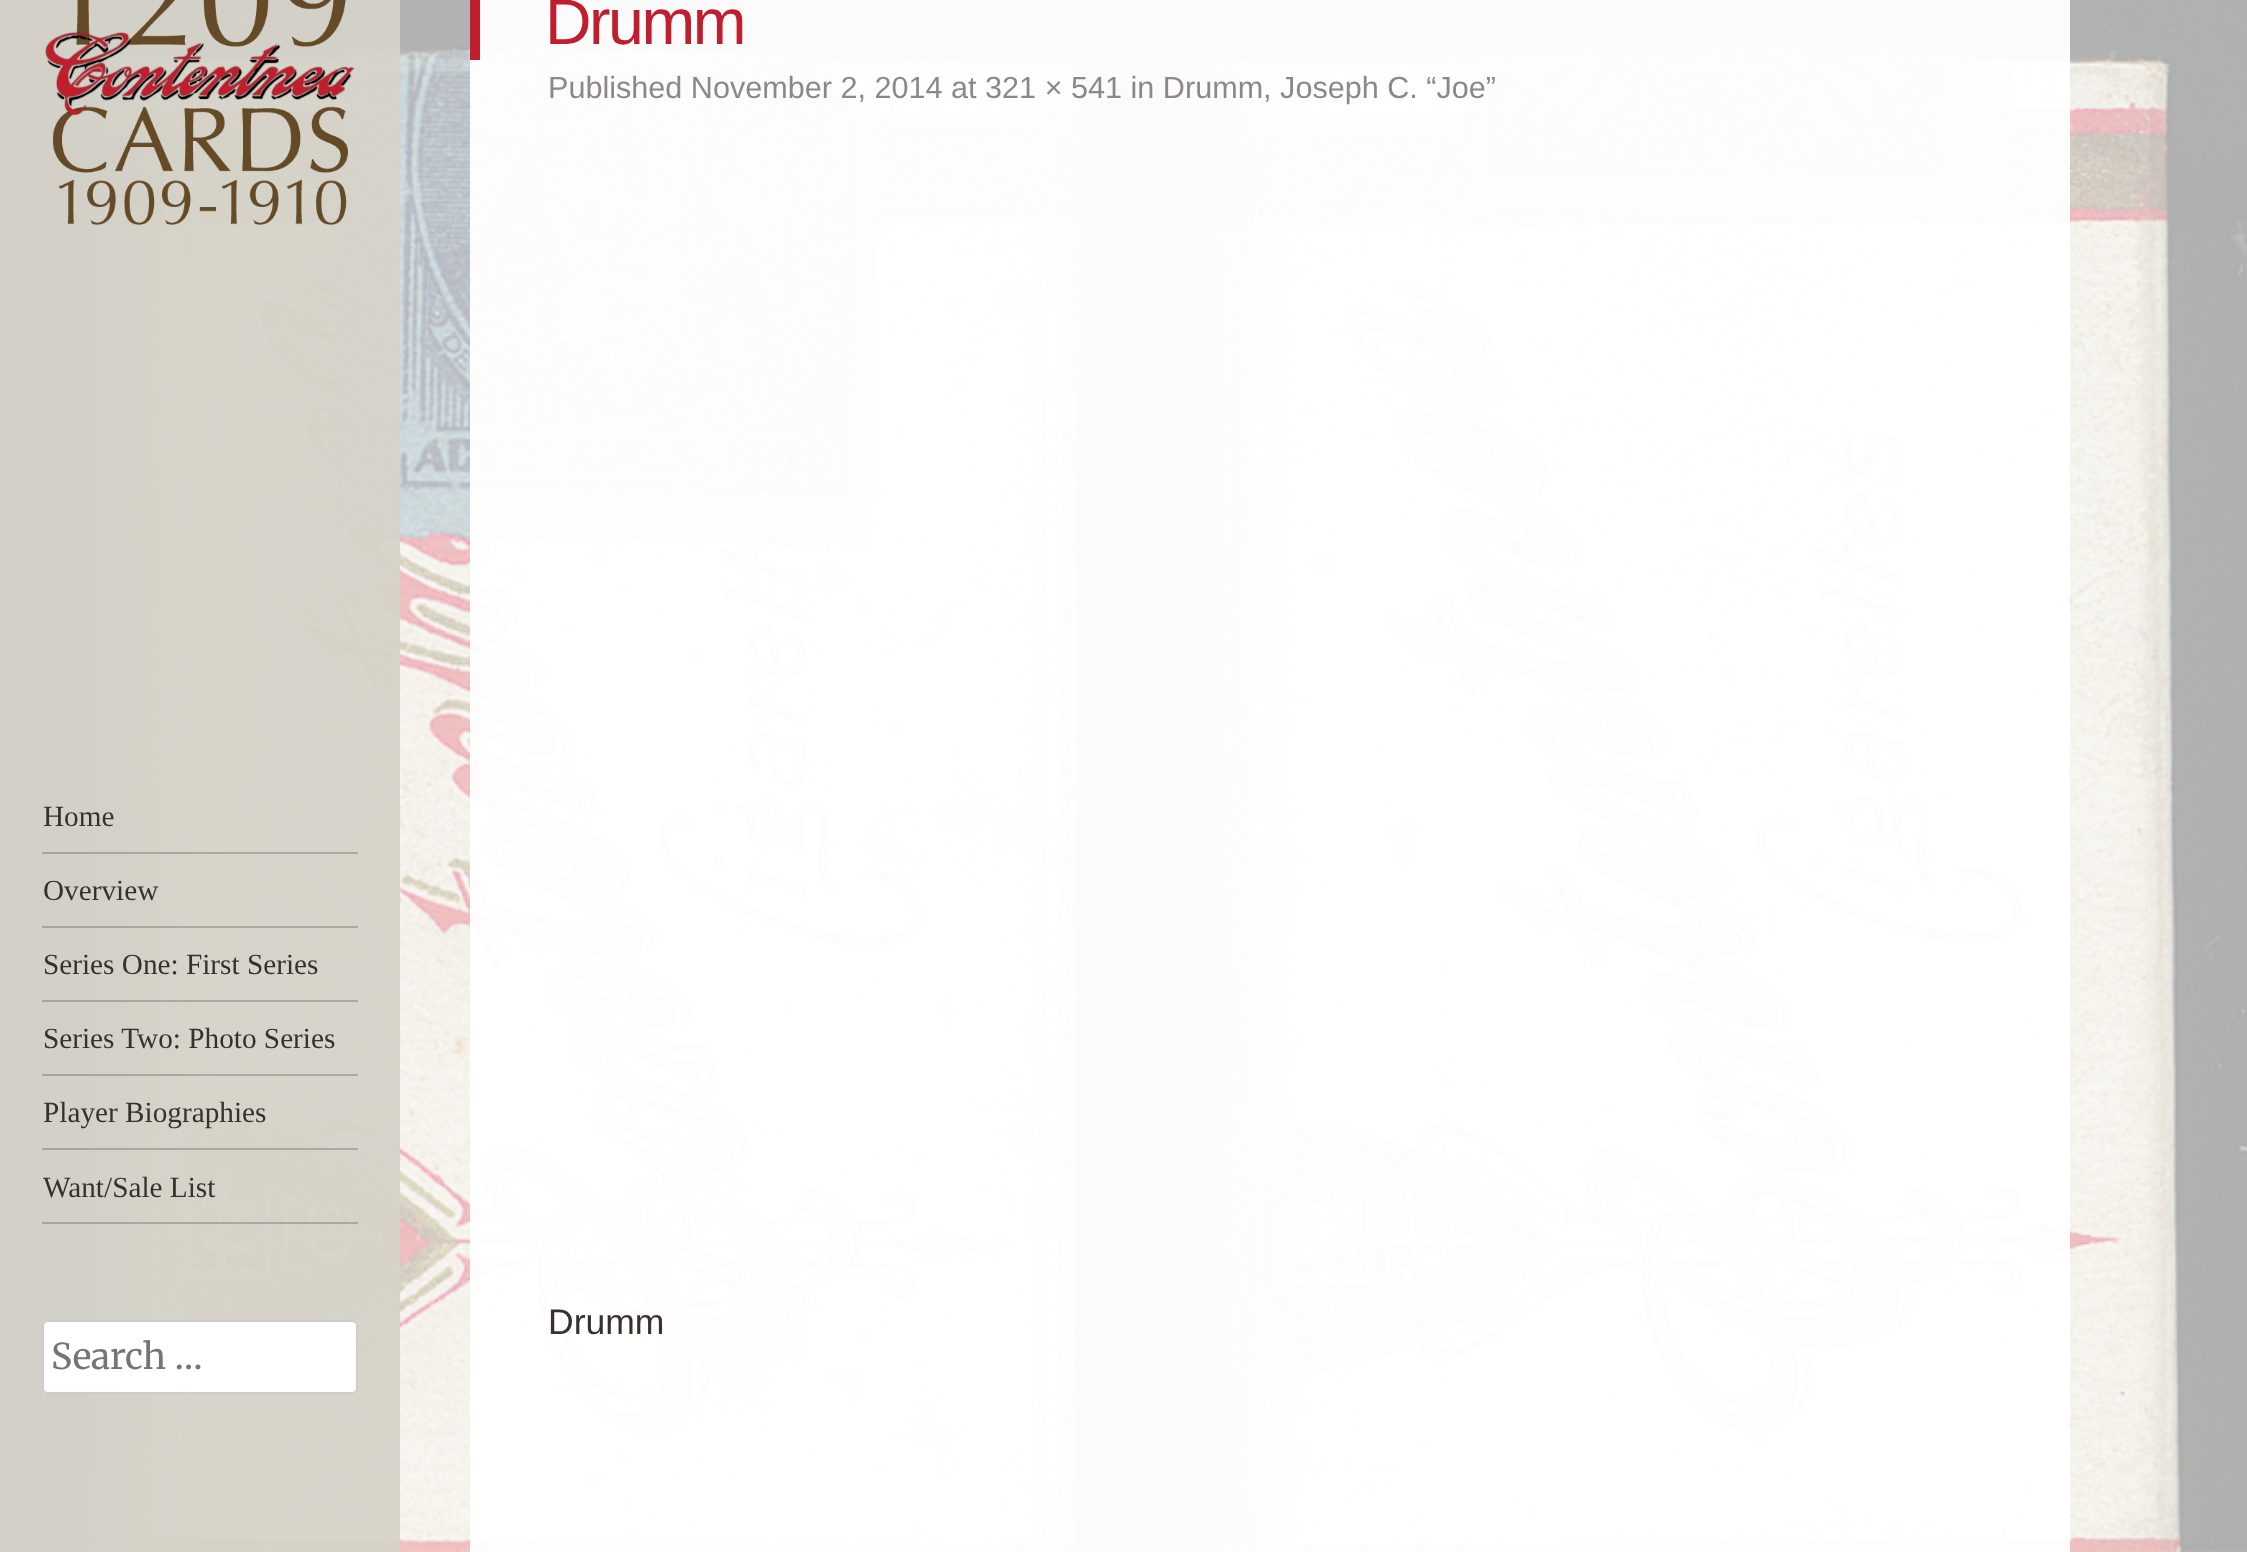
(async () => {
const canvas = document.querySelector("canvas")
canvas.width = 2247
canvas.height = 1552
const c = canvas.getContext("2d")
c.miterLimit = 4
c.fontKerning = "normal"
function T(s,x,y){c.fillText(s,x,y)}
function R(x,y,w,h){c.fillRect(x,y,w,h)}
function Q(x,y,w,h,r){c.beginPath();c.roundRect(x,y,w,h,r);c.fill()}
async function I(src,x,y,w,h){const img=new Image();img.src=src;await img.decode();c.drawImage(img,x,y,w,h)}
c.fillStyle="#f6f6f6"
R(0,0,2247,1552)
await I("1.png",0,0,2247,1552)
c.fillStyle="#d5d3c8f2"
R(0,0,400,1552)
c.fillStyle="#fffffff2"
R(470,0,1600,1552)
c.fillStyle="#be1e2d"
R(470,0,10,60)
c.letterSpacing="-2.5px"
c.font="64.5px Liberation Sans"
T("Drumm",545,44)
c.letterSpacing="0px"
c.font="30.6px Liberation Sans"
c.fillStyle="#8c8885"
T("Published November 2, 2014 at 321 × 541 in Drumm, Joseph C. “Joe”",548,98)
c.font="35.5px Liberation Sans"
c.fillStyle="#36312d"
T("Drumm",548,1334)
await I("2.png",45,0,310,225)
c.fillStyle="#00000033"
R(42,852,316,2)
c.font="29.25px Liberation Serif"
c.fillStyle="#36312d"
T("Home",43,826)
c.fillStyle="#00000033"
R(42,926,316,2)
c.fillStyle="#36312d"
T("Overview",43,900)
c.fillStyle="#00000033"
R(42,1000,316,2)
c.fillStyle="#36312d"
T("Series One: First Series",43,974)
c.fillStyle="#00000033"
R(42,1074,316,2)
c.fillStyle="#36312d"
T("Series Two: Photo Series",43,1048)
c.fillStyle="#00000033"
R(42,1148,316,2)
c.fillStyle="#36312d"
T("Player Biographies",43,1122)
c.fillStyle="#00000033"
R(42,1222,316,2)
c.fillStyle="#36312d"
T("Want/Sale List",43,1197)
c.fillStyle="#fff"
Q(42,1320,316,74,6)
c.beginPath()
c.roundRect(43,1321,314,72,5)
c.strokeStyle="#00000033"
c.lineWidth=2
c.stroke()
c.font="35.5px Merriweather"
c.fillStyle="#757575"
T("Search …",51,1369)
})()
